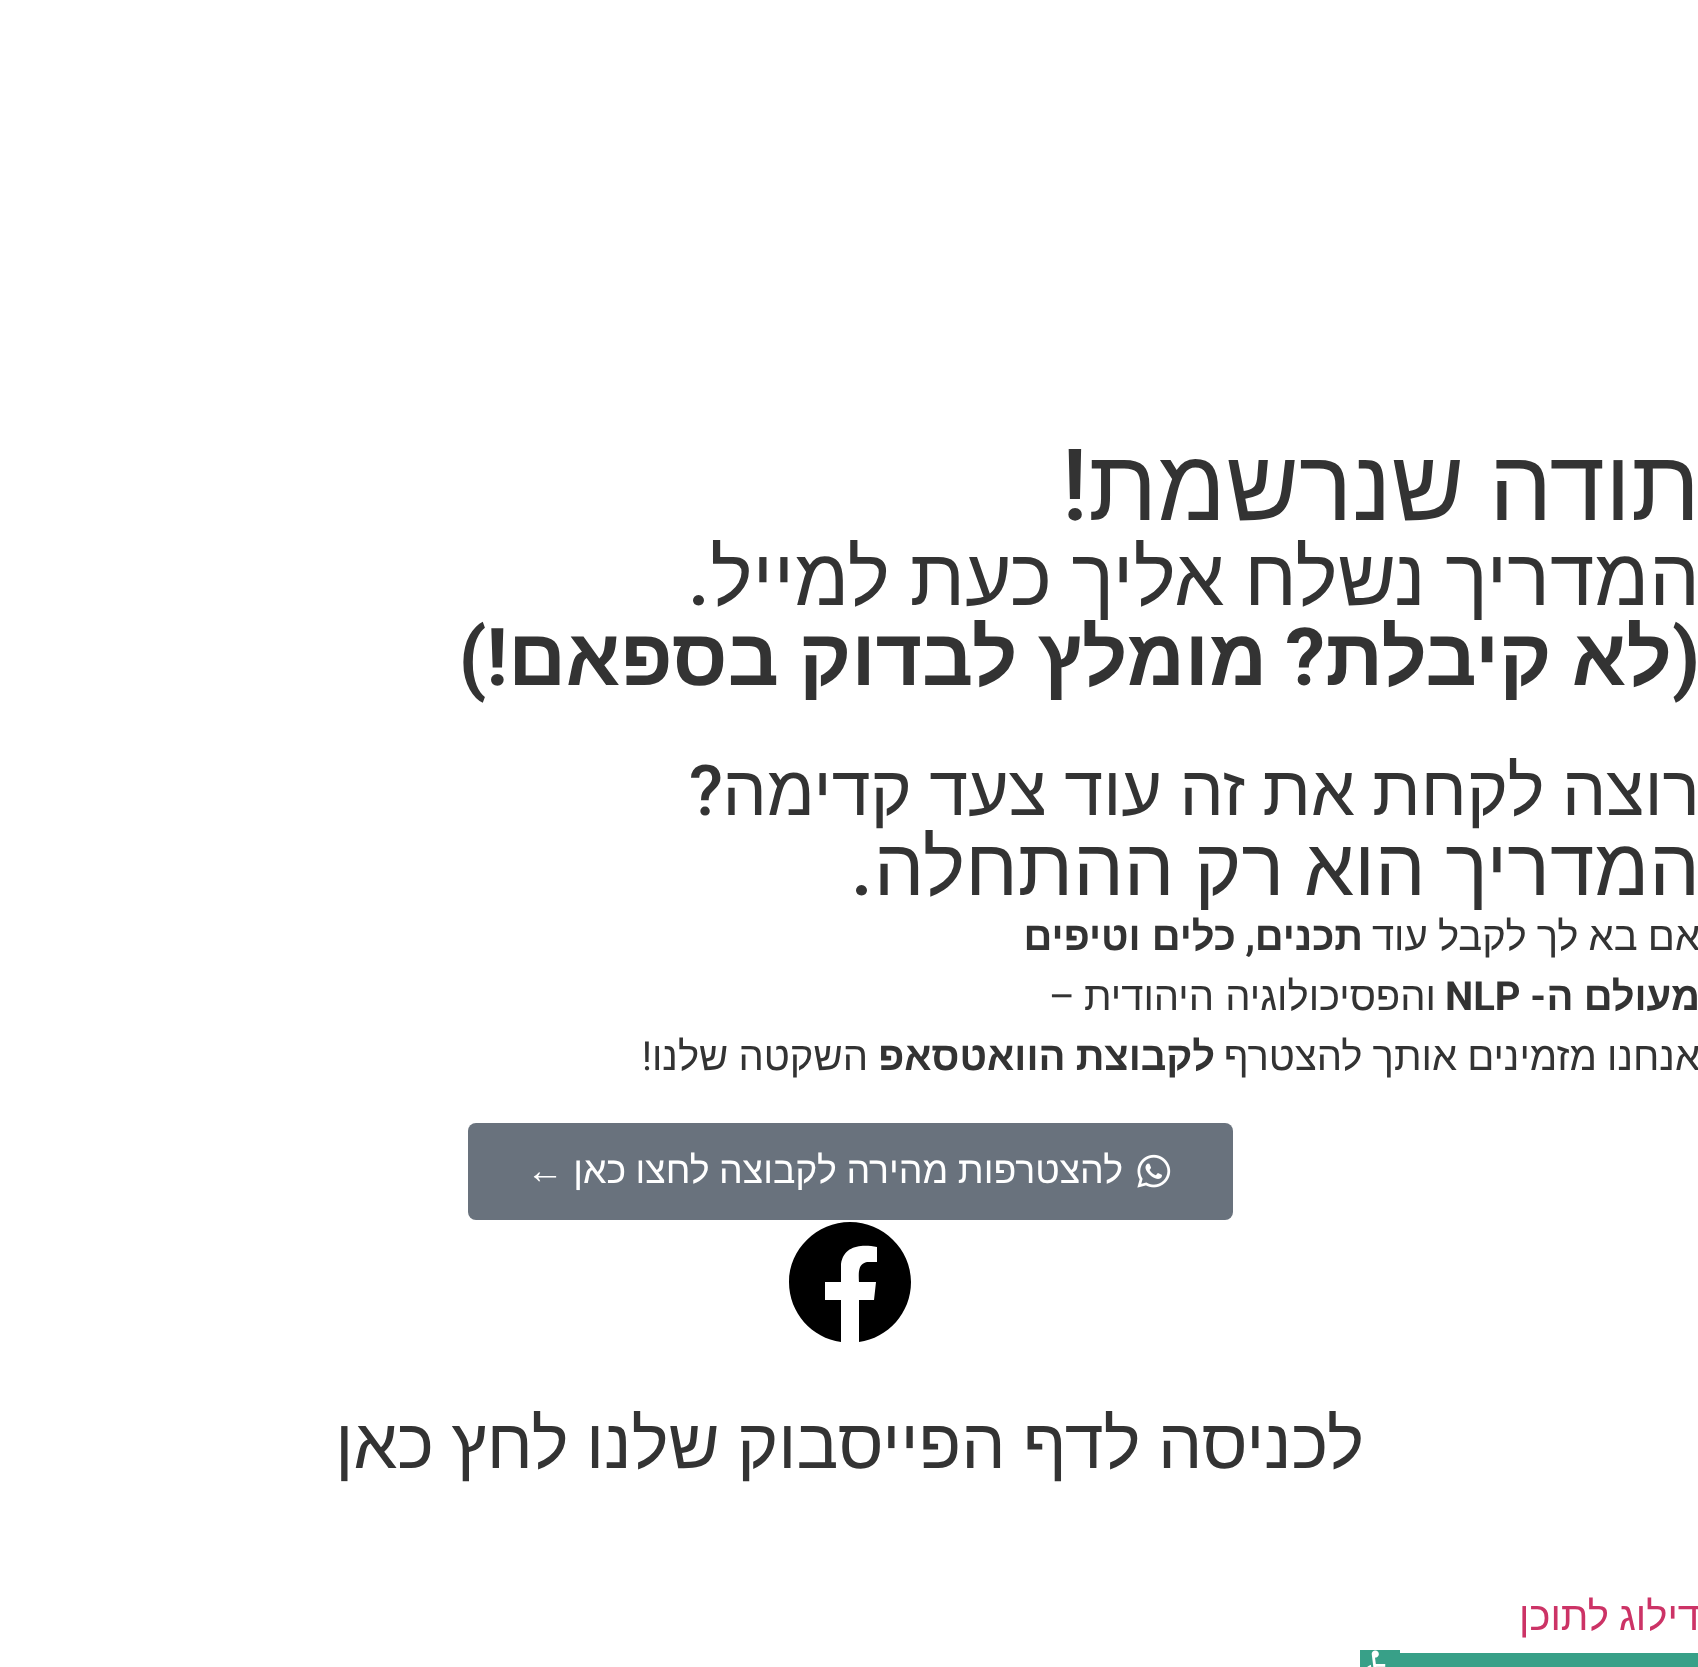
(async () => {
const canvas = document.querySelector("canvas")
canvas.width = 1698
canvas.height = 1667
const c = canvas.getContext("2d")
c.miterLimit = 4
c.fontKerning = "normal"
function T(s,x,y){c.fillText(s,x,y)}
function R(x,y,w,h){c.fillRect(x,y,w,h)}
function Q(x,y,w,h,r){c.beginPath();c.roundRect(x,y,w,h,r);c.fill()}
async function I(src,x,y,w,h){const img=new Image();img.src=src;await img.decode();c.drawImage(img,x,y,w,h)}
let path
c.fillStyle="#fff"
R(0,0,1698,1667)
c.wordSpacing="-3px"
c.direction="rtl"
c.font="100px Liberation Sans"
c.fillStyle="#333"
T("תודה שנרשמת",1700,520)
c.wordSpacing="0px"
c.font="500 100px Roboto"
T("!",1088,520)
c.wordSpacing="-2.5px"
c.font="80px Liberation Sans"
T("המדריך נשלח אליך כעת למייל",1700,605)
c.wordSpacing="0px"
c.font="500 80px Roboto"
T(".",710,605)
c.font="bold 80px Roboto"
T("(",1700,685)
c.wordSpacing="-2px"
c.font="bold 80px Liberation Sans"
T("לא קיבלת",1672,685)
c.wordSpacing="0px"
c.font="bold 80px Roboto"
T("?",1325,685)
c.wordSpacing="-2px"
c.font="bold 80px Liberation Sans"
T("מומלץ לבדוק בספאם",1267,685)
c.wordSpacing="0px"
c.font="bold 80px Roboto"
T("!)",508,685)
c.wordSpacing="-2px"
c.font="70px Liberation Sans"
T("רוצה לקחת את זה עוד צעד קדימה",1700,815)
c.wordSpacing="0px"
c.font="500 70px Roboto"
T("?",723,815)
c.wordSpacing="-2.5px"
c.font="80px Liberation Sans"
T("המדריך הוא רק ההתחלה",1700,895)
c.wordSpacing="0px"
c.font="500 80px Roboto"
T(".",873,895)
c.wordSpacing="-1px"
c.font="40px Liberation Sans"
T("אם בא לך לקבל עוד",1700,950)
c.wordSpacing="0px"
c.font="bold 40px Liberation Sans"
T("תכנים",1363,950)
c.font="bold 40px Roboto"
T(",",1255,950)
c.font="bold 40px Liberation Sans"
T("כלים וטיפים",1236,950)
c.wordSpacing="-1px"
T("מעולם ה",1700,1010)
c.wordSpacing="0px"
c.font="bold 40px Roboto"
T("-",1546,1010)
c.direction="ltr"
T("NLP",1445,1010)
c.direction="rtl"
c.font="40px Liberation Sans"
T("והפסיכולוגיה היהודית",1436,1010)
c.font="40px Roboto"
T("–",1075,1010)
c.wordSpacing="-1px"
c.font="40px Liberation Sans"
T("אנחנו מזמינים אותך להצטרף",1700,1070)
c.font="bold 40px Liberation Sans"
T("לקבוצת הוואטסאפ",1215,1070)
c.font="40px Liberation Sans"
T("השקטה שלנו",868,1070)
c.wordSpacing="0px"
c.font="40px Roboto"
T("!",652,1070)
c.fillStyle="#69727d"
Q(468,1123,765,97,8)
await I("1.png",1137,1154,34,34)
c.wordSpacing="-1px"
c.font="37.5px Liberation Sans"
c.fillStyle="#fff"
T("להצטרפות מהירה לקבוצה לחצו כאן ←",1123,1183)
c.fillStyle="#000"
path = new Path2D("M911 1282c0-33-28-60-61-60c-33 0-61 27-61 60c0 31 23 56 52 60v-42h-16v-18h16v-18c3-19 21-20 36-17v15h-10c-10 2-8 13-8 20h17l-2 18h-15v42c29-4 52-29 52-60z")
c.fill(path)
c.wordSpacing="-2px"
c.font="70px Liberation Sans"
c.fillStyle="#333"
T("לכניסה לדף הפייסבוק שלנו לחץ כאן",1364,1468)
c.wordSpacing="-1px"
c.font="40px Liberation Sans"
c.fillStyle="#c36"
T("דילוג לתוכן",1700,1630)
c.fillStyle="#38a088"
R(1360,1650,40,17)
R(1400,1653,298,14)
await I("2.png",1367,1650,19,17)
})()
